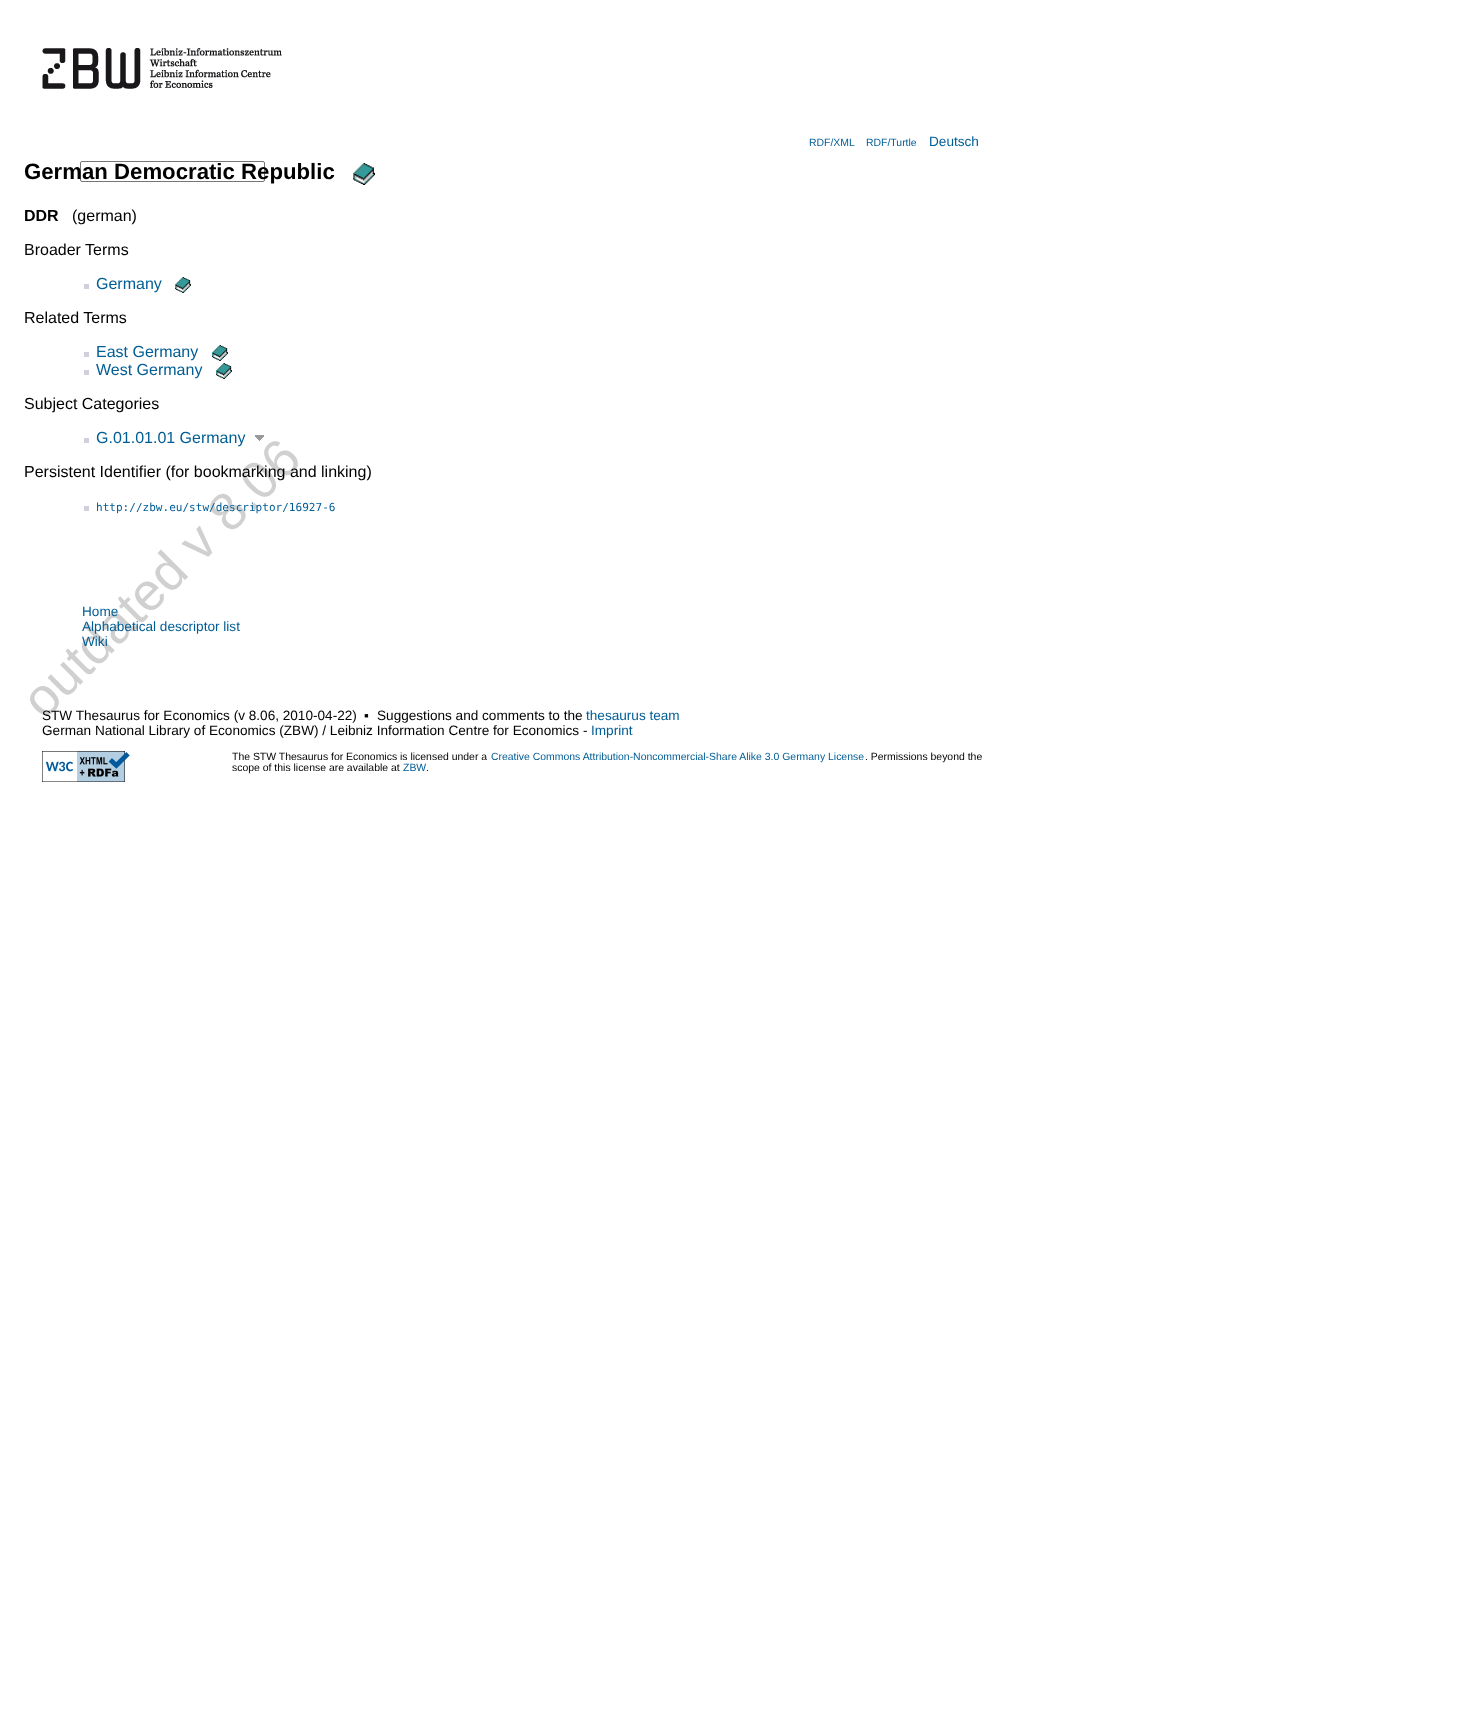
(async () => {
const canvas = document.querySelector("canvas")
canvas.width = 1461
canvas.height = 1709
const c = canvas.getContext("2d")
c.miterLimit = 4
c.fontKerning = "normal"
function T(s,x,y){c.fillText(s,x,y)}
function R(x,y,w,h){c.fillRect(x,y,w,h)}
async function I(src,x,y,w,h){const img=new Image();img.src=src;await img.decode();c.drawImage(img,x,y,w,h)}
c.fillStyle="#fff"
R(0,0,1461,1709)
await I("1.png",42,48,240,41)
c.font="10.45px Liberation Sans"
c.fillStyle="#005d95"
T("RDF/XML",809,146)
T("RDF/Turtle",866,146)
c.font="13.6px Liberation Sans"
T("Deutsch",929,146)
c.beginPath()
c.roundRect(80.5,161.5,184,20,1.5)
c.strokeStyle="#767676"
c.stroke()
c.font="bold 22.2px Liberation Sans"
c.fillStyle="#000"
T("German Democratic Republic",24,179)
await I("2.png",353,163,22,22)
c.font="bold 16px Liberation Sans"
T("DDR",24,221)
c.font="16px Liberation Sans"
T("(german)",72,221)
T("Broader Terms",24,255)
c.fillStyle="#d1cfdd"
R(84,284,5,5)
c.fillStyle="#005d95"
T("Germany",96,289)
await I("3.png",175,277,16,16)
c.fillStyle="#000"
T("Related Terms",24,323)
c.fillStyle="#d1cfdd"
R(84,352,5,5)
c.fillStyle="#005d95"
T("East Germany",96,357)
await I("3.png",212,345,16,16)
c.fillStyle="#d1cfdd"
R(84,370,5,5)
c.fillStyle="#005d95"
T("West Germany",96,375)
await I("3.png",216,363,16,16)
c.fillStyle="#000"
T("Subject Categories",24,409)
c.font="53.25px Liberation Sans"
c.fillStyle="#d0d0d0"
c.save()
c.translate(44,721)
c.rotate(-45 * Math.PI / 180)
c.fillText("outdated v 8.06",0,0)
c.restore()
c.fillStyle="#d1cfdd"
R(84,438,5,5)
c.font="16px Liberation Sans"
c.fillStyle="#005d95"
T("G.01.01.01 Germany",96,443)
await I("4.png",255,435,9,6)
c.fillStyle="#000"
T("Persistent Identifier (for bookmarking and linking)",24,477)
c.fillStyle="#d1cfdd"
R(84,506,5,5)
c.font="11.05px DejaVu Sans Mono"
c.fillStyle="#005d95"
T("http://zbw.eu/stw/descriptor/16927-6",96,511)
c.font="13.6px Liberation Sans"
T("Home",82,616)
T("Alphabetical descriptor list",82,631)
T("Wiki",82,646)
c.fillStyle="#000"
T("STW Thesaurus for Economics (v 8.06, 2010-04-22)",42,720)
T("▪",364,720)
T("Suggestions and comments to the",377,720)
c.fillStyle="#005d95"
T("thesaurus team",586,720)
c.fillStyle="#000"
T("German National Library of Economics (ZBW) / Leibniz Information Centre for Economics -",42,735)
c.fillStyle="#005d95"
T("Imprint",591,735)
await I("5.png",42,751,88,31)
c.font="10.45px Liberation Sans"
c.fillStyle="#000"
T("The STW Thesaurus for Economics is licensed under a",232,760)
c.fillStyle="#005d95"
T("Creative Commons Attribution-Noncommercial-Share Alike 3.0 Germany License",491,760)
c.fillStyle="#000"
T(". Permissions beyond the",865,760)
T("scope of this license are available at",232,771)
c.fillStyle="#005d95"
T("ZBW",403,771)
c.fillStyle="#000"
T(".",426,771)
})()
